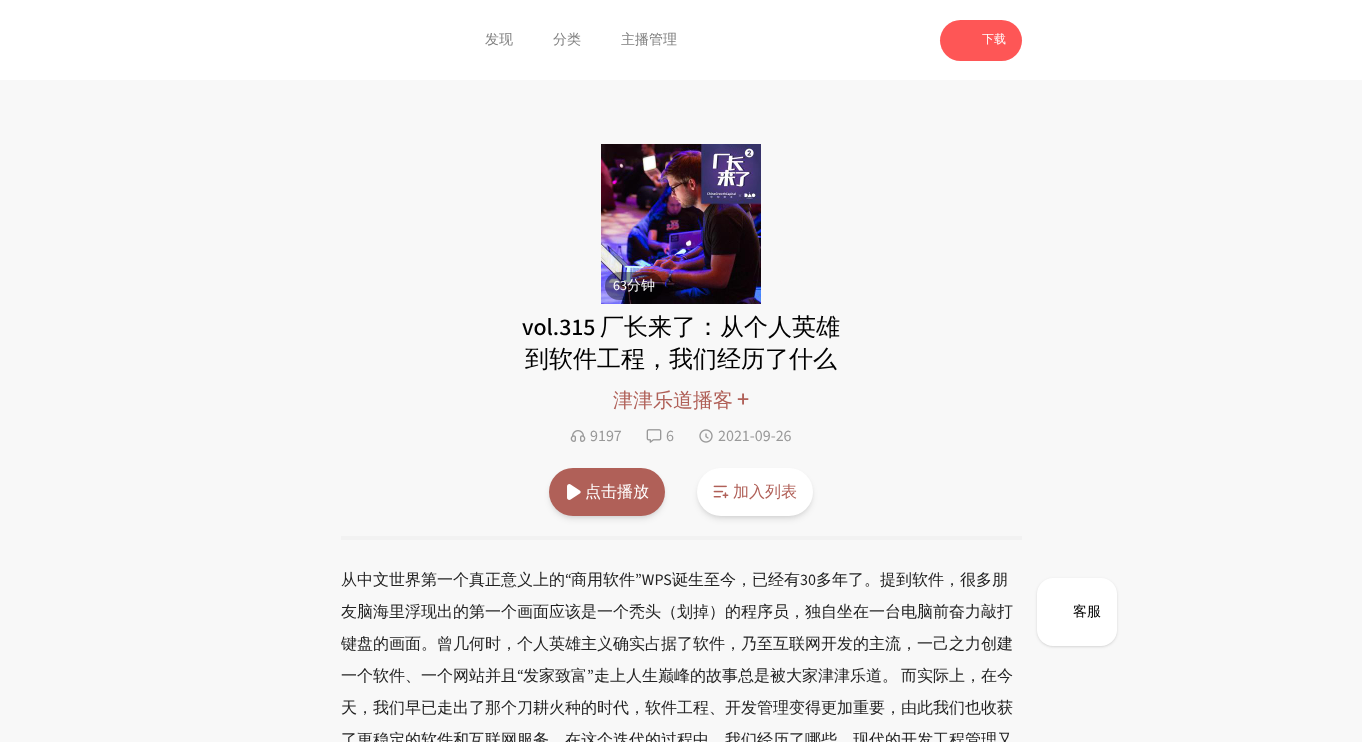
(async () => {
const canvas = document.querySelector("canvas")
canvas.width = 1362
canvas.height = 742
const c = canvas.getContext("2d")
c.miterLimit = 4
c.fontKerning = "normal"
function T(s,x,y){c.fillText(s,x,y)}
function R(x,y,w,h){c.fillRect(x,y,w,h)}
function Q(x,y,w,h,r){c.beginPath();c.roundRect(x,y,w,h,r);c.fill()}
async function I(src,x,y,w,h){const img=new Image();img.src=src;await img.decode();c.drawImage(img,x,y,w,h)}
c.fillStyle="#f8f8f8"
R(0,0,1362,742)
c.fillStyle="#fff"
R(0,0,1362,80)
c.font="500 14px WenQuanYi Zen Hei"
c.fillStyle="#808080"
T("发现",485,44)
T("分类",553,44)
T("主播管理",621,44)
c.fillStyle="#fe5656"
Q(940,20,82,41,20.5)
c.font="500 12px WenQuanYi Zen Hei"
c.fillStyle="#fff"
T("下载",982,43)
await I("1.png",601,144,160,160)
c.fillStyle="#00000066"
Q(605,272,58,28,14)
c.font="14px 'Source Sans 3'"
c.fillStyle="#fff"
T("63",613,290)
c.font="500 14px WenQuanYi Zen Hei"
T("分钟",627,290)
c.font="500 24px 'Source Sans 3'"
c.fillStyle="#000"
T("vol.315",522,335)
c.font="500 24px WenQuanYi Zen Hei"
T("厂长来了：从个人英雄",600,335)
T("到软件工程，我们经历了什么",525,367)
c.font="500 20px WenQuanYi Zen Hei"
c.fillStyle="#b06058"
T("津津乐道播客",613,407)
c.font="500 24px 'Source Sans 3'"
T("+",737,407)
await I("2.png",570,430,16,12)
c.font="16px 'Source Sans 3'"
c.fillStyle="#999"
T("9197",590,441)
await I("3.png",646,429,16,14)
T("6",666,441)
await I("4.png",699,429,14,14)
T("2021-09-26",718,441)
c.fillStyle="#0000001a"
c.filter="blur(2px)"
c.beginPath()
c.roundRect(551,472,112,44,22)
c.fill()
c.filter="none"
c.filter="blur(3px)"
c.beginPath()
c.roundRect(550,473,114,46,23)
c.fill()
c.filter="none"
c.fillStyle="#b06058"
Q(549,468,116,48,24)
await I("5.png",567,484,14,16)
c.font="500 16px WenQuanYi Zen Hei"
c.fillStyle="#fff"
T("点击播放",585,497)
c.fillStyle="#0000001a"
c.filter="blur(2px)"
c.beginPath()
c.roundRect(699,472,112,44,22)
c.fill()
c.filter="none"
c.filter="blur(3px)"
c.beginPath()
c.roundRect(698,473,114,46,23)
c.fill()
c.filter="none"
c.fillStyle="#fff"
Q(697,468,116,48,24)
await I("6.png",713,485,16,14)
c.fillStyle="#b06058"
T("加入列表",733,497)
c.fillStyle="#f2f2f2"
R(341,536,681,4)
c.fillStyle="#222"
T("从中文世界第一个真正意义上的",341,585)
c.font="16px 'Source Sans 3'"
T("“",565,585)
c.font="500 16px WenQuanYi Zen Hei"
T("商用软件",571,585)
c.font="16px 'Source Sans 3'"
T("”WPS",635,585)
c.font="500 16px WenQuanYi Zen Hei"
T("诞生至今，已经有",672,585)
c.font="16px 'Source Sans 3'"
T("30",800,585)
c.font="500 16px WenQuanYi Zen Hei"
T("多年了。提到软件，很多朋",816,585)
T("友脑海里浮现出的第一个画面应该是一个秃头（划掉）的程序员，独自坐在一台电脑前奋力敲打",341,617)
T("键盘的画面。曾几何时，个人英雄主义确实占据了软件，乃至互联网开发的主流，一己之力创建",341,649)
T("一个软件、一个网站并且",341,681)
c.font="16px 'Source Sans 3'"
T("“",517,681)
c.font="500 16px WenQuanYi Zen Hei"
T("发家致富",523,681)
c.font="16px 'Source Sans 3'"
T("”",587,681)
c.font="500 16px WenQuanYi Zen Hei"
T("走上人生巅峰的故事总是被大家津津乐道。",594,681)
T("而实际上，在今",901,681)
T("天，我们早已走出了那个刀耕火种的时代，软件工程、开发管理变得更加重要，由此我们也收获",341,713)
T("了更稳定的软件和互联网服务，在这个迭代的过程中，我们经历了哪些，现代的开发工程管理又",341,745)
c.fillStyle="#0000001a"
c.filter="blur(1px)"
c.beginPath()
c.roundRect(1038,580,78,66,15)
c.fill()
c.filter="none"
c.filter="blur(1.5px)"
c.beginPath()
c.roundRect(1037,579,80,68,16)
c.fill()
c.filter="none"
c.fillStyle="#fff"
Q(1037,578,80,68,16)
c.font="500 14px WenQuanYi Zen Hei"
c.fillStyle="#000"
T("客服",1073,616)
})()
